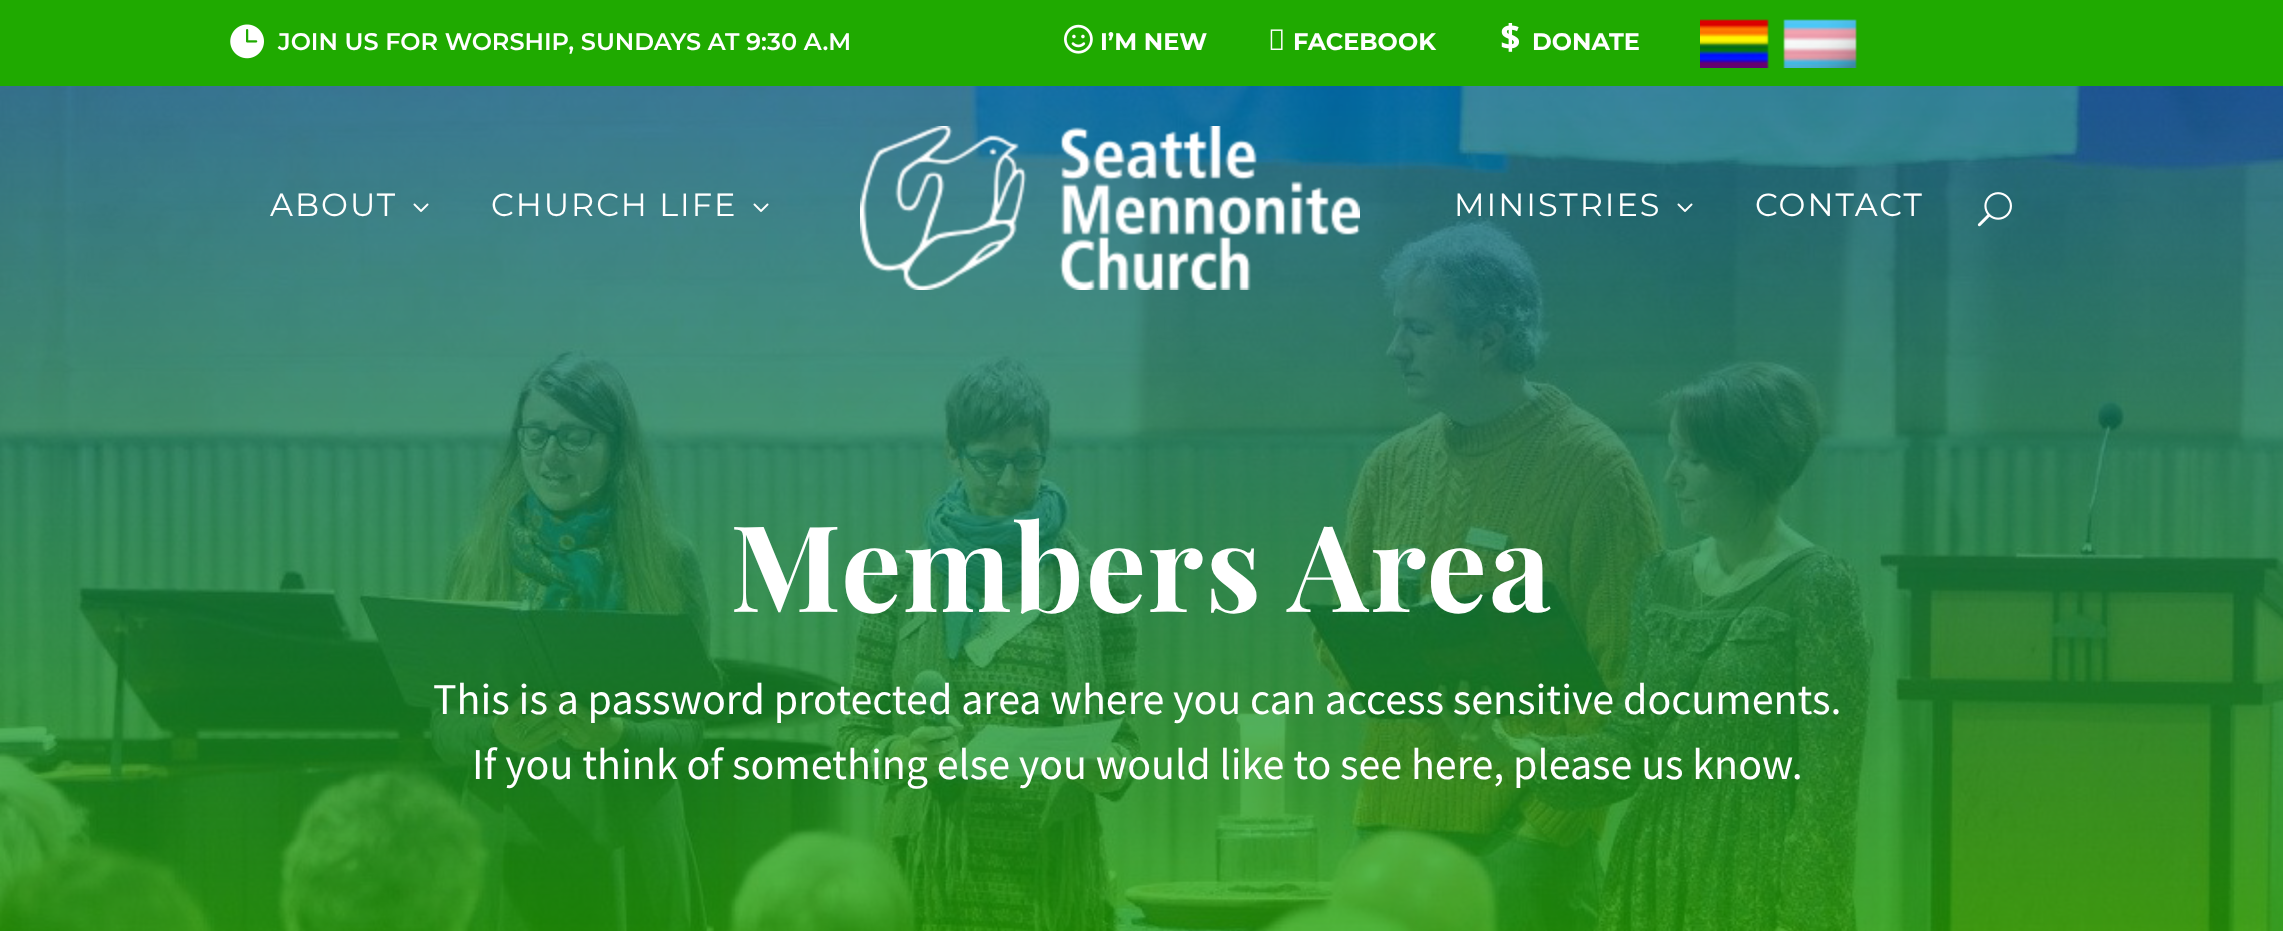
(async () => {
const canvas = document.querySelector("canvas")
canvas.width = 2283
canvas.height = 931
const c = canvas.getContext("2d")
c.miterLimit = 4
c.fontKerning = "normal"
function T(s,x,y){c.fillText(s,x,y)}
function R(x,y,w,h){c.fillRect(x,y,w,h)}
async function I(src,x,y,w,h){const img=new Image();img.src=src;await img.decode();c.drawImage(img,x,y,w,h)}
c.fillStyle="#fff"
R(0,0,2283,931)
c.fillStyle="#1faa00"
R(0,0,2283,86)
await I("1.png",230,24,34,35)
c.font="600 24px Montserrat"
c.fillStyle="#fff"
T("JOIN US FOR WORSHIP, SUNDAYS AT 9:30 A.M",278,50)
await I("2.png",1064,24,29,30)
c.font="bold 24px Montserrat"
T("I’M NEW",1100,50)
await I("3.png",1270,29,13,21)
T("FACEBOOK",1293,50)
await I("4.png",1501,23,18,29)
T("DONATE",1532,50)
await I("5.png",1700,19,157,49)
await I("11.png",0,86,2283,845)
c.letterSpacing="2px"
c.font="32px Montserrat"
T("ABOUT",270,216)
await I("6.png",413,203,16,9)
T("CHURCH LIFE",491,216)
await I("7.png",753,203,16,9)
await I("8.png",860,126,500,164)
T("MINISTRIES",1454,216)
await I("9.png",1677,203,16,9)
T("CONTACT",1755,216)
await I("10.png",1977,192,35,35)
c.font="bold 120px Playfair Display"
T("Members Area",730,612)
c.letterSpacing="0px"
c.font="44px Source Sans Pro"
T("This is a password protected area where you can access sensitive documents.",433,714)
T("If you think of something else you would like to see here, please us know.",472,779)
})()
